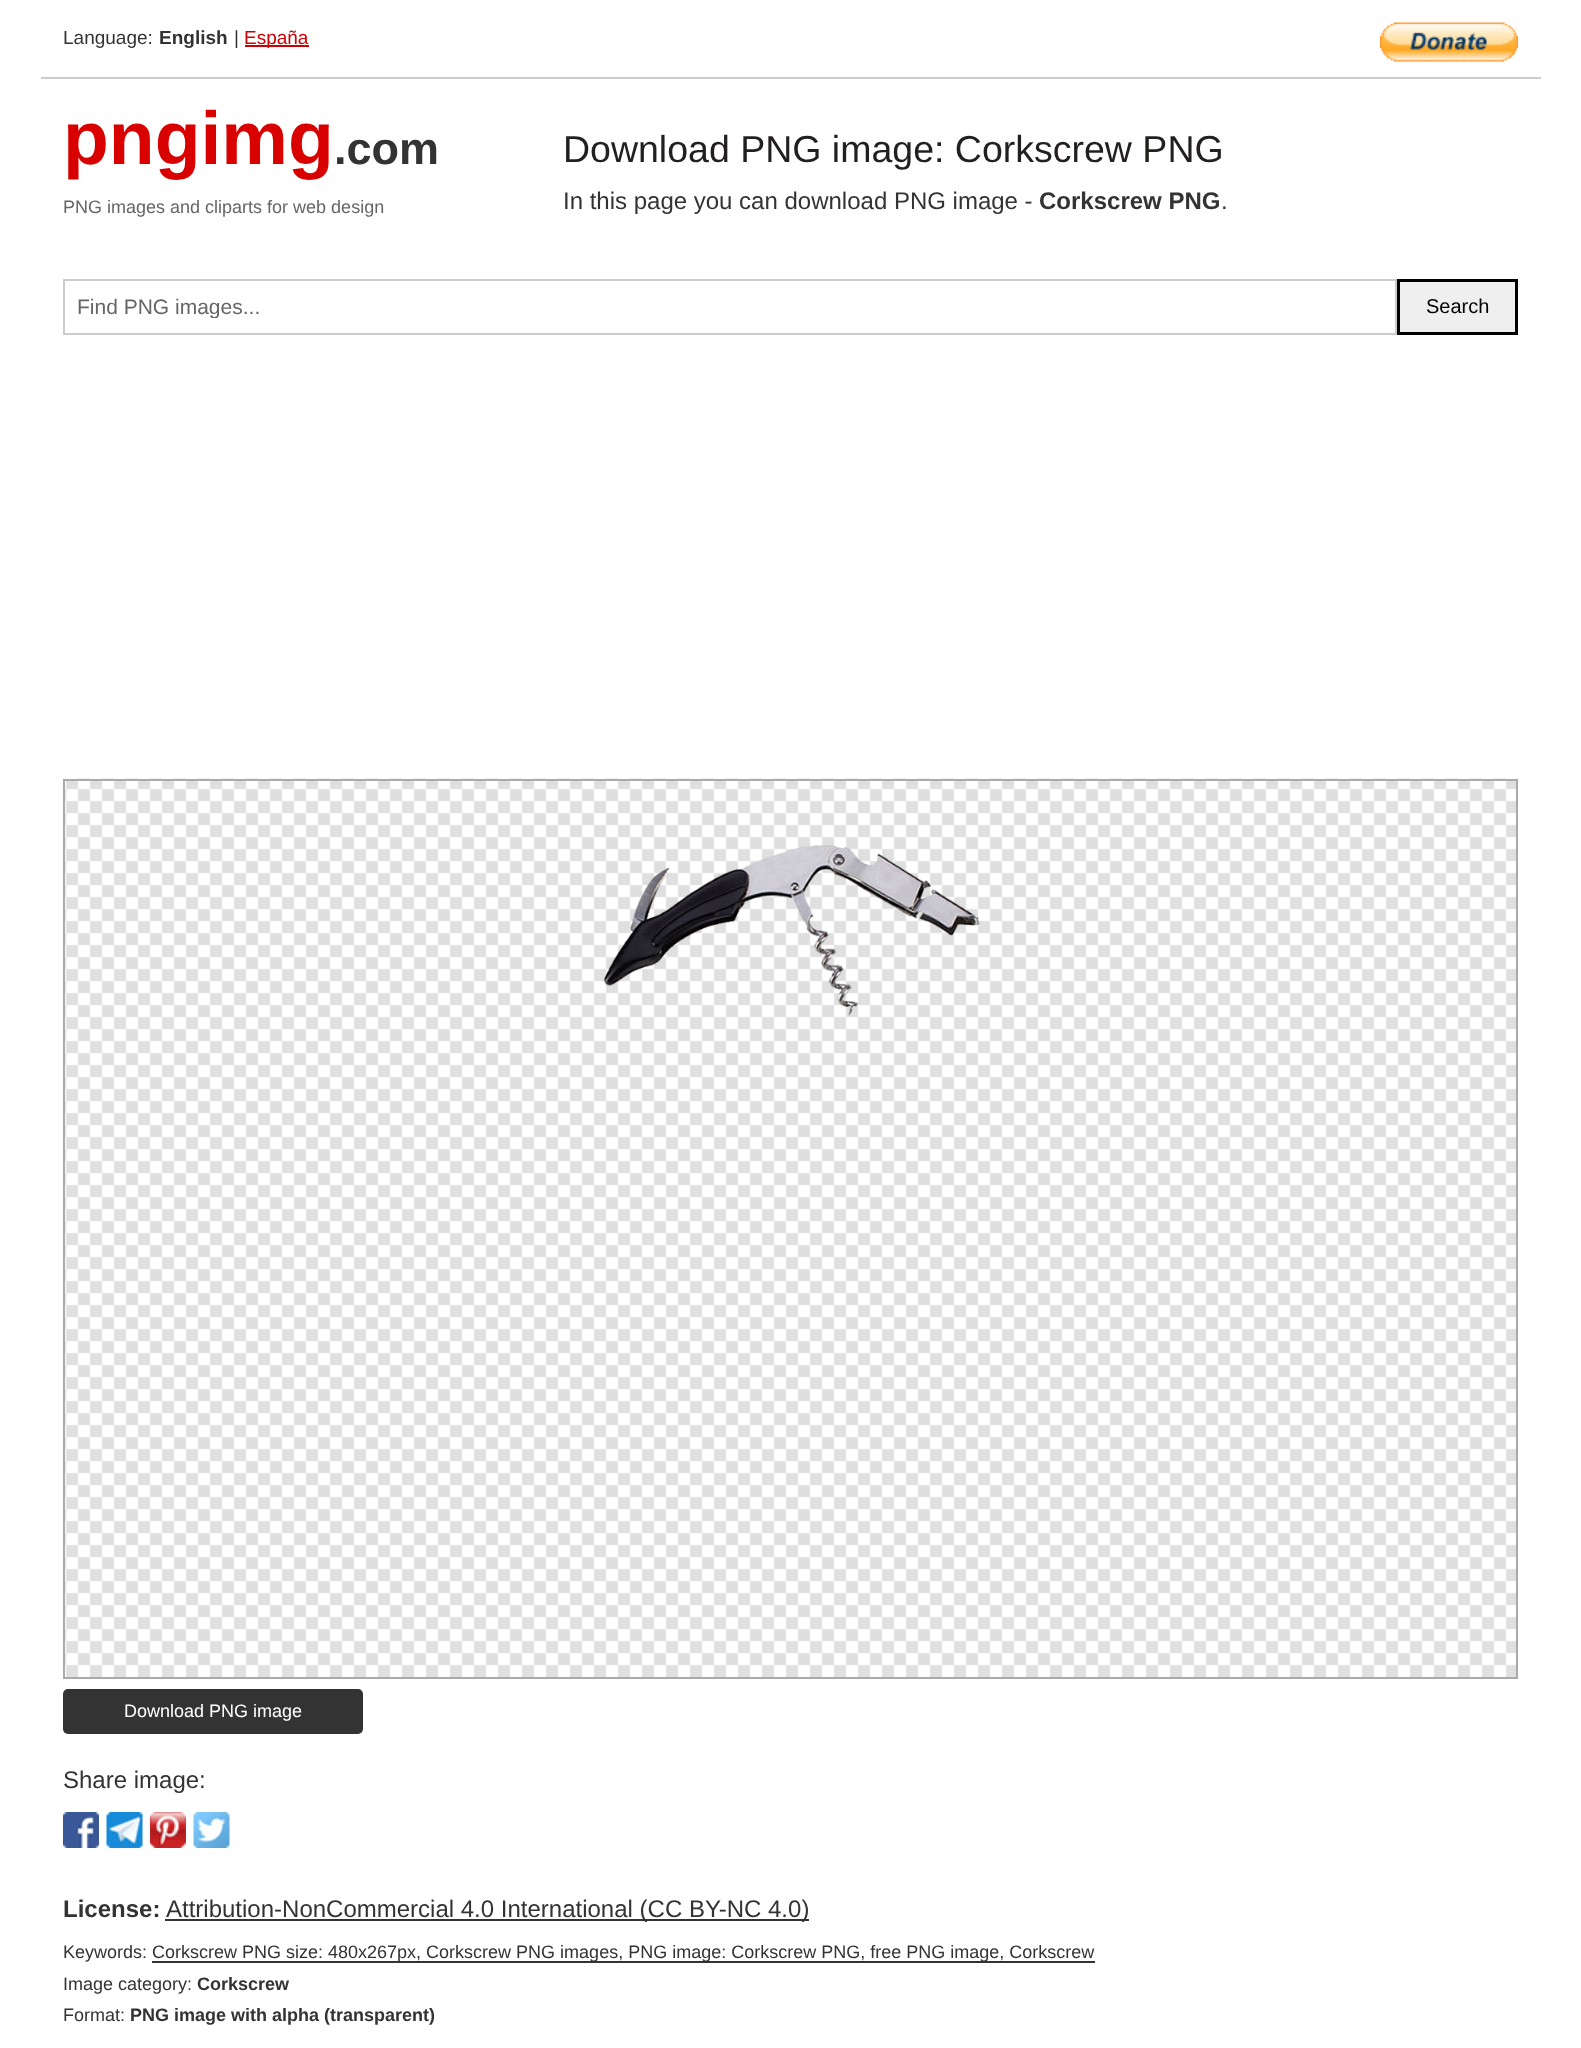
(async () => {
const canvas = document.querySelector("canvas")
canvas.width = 1581
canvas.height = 2048
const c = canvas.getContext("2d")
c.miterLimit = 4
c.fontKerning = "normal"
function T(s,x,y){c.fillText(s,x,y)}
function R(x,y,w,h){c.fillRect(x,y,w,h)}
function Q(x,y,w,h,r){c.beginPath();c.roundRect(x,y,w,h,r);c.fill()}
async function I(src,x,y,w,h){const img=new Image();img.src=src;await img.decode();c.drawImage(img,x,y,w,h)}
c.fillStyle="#fff"
R(0,0,1581,2048)
c.fillStyle="#ccc"
R(41,77,1500,2)
c.font="19px Liberation Sans"
c.fillStyle="#333"
T("Language:",63,44)
c.font="bold 19px Liberation Sans"
T("English",159,44)
c.font="19px Liberation Sans"
T("|",234,44)
c.fillStyle="#c00"
R(245,45,64,2)
T("España",244,44)
await I("1.png",1380,22,138,40)
c.font="bold 75px Liberation Sans"
c.fillStyle="#d90000"
T("pngimg",63,164)
c.font="bold 45px Liberation Sans"
c.fillStyle="#333"
T(".com",334,164)
c.font="18px Liberation Sans"
c.fillStyle="#666"
T("PNG images and cliparts for web design",63,213)
c.font="37.5px Liberation Sans"
c.fillStyle="#231f1f"
T("Download PNG image: Corkscrew PNG",563,162)
c.font="24px Liberation Sans"
c.fillStyle="#333"
T("In this page you can download PNG image -",563,209)
c.font="bold 24px Liberation Sans"
T("Corkscrew PNG",1039,209)
c.font="24px Liberation Sans"
T(".",1221,209)
c.strokeStyle="#ccc"
c.lineWidth=2
c.strokeRect(64,280,1332,54)
c.save()
c.beginPath()
c.rect(77,294,1306,24)
c.clip()
c.font="21px Liberation Sans"
c.fillStyle="#666"
T("Find PNG images...",77,314)
c.restore()
c.fillStyle="#efefef"
c.beginPath()
c.rect(1398.5,280.5,118,53)
c.fill()
c.strokeStyle="#000"
c.lineWidth=3
c.stroke()
c.font="20px Liberation Sans"
c.fillStyle="#000"
T("Search",1426,313)
await I("2.png",63,778,1455,899)
c.strokeStyle="#aaa"
c.lineWidth=2
c.strokeRect(64,780,1453,898)
await I("3.png",603,845,377,171)
c.fillStyle="#333"
Q(63,1689,300,45,5)
c.font="18px Liberation Sans"
c.fillStyle="#fff"
T("Download PNG image",124,1717)
c.font="24px Liberation Sans"
c.fillStyle="#333"
T("Share image:",63,1788)
await I("4.png",63,1812,36,36)
await I("5.png",106,1812,37,36)
await I("6.png",150,1812,36,36)
await I("7.png",193,1812,37,36)
c.font="bold 24px Liberation Sans"
T("License:",63,1917)
R(165,1919,644,2)
c.font="24px Liberation Sans"
T("Attribution-NonCommercial 4.0 International (CC BY-NC 4.0)",166,1917)
c.font="18px Liberation Sans"
T("Keywords:",63,1958)
R(152,1961,943,2)
T("Corkscrew PNG size: 480x267px, Corkscrew PNG images, PNG image: Corkscrew PNG, free PNG image, Corkscrew",152,1958)
T("Image category:",63,1990)
c.font="bold 18px Liberation Sans"
T("Corkscrew",197,1990)
c.font="18px Liberation Sans"
T("Format:",63,2021)
c.font="bold 18px Liberation Sans"
T("PNG image with alpha (transparent)",130,2021)
})()
